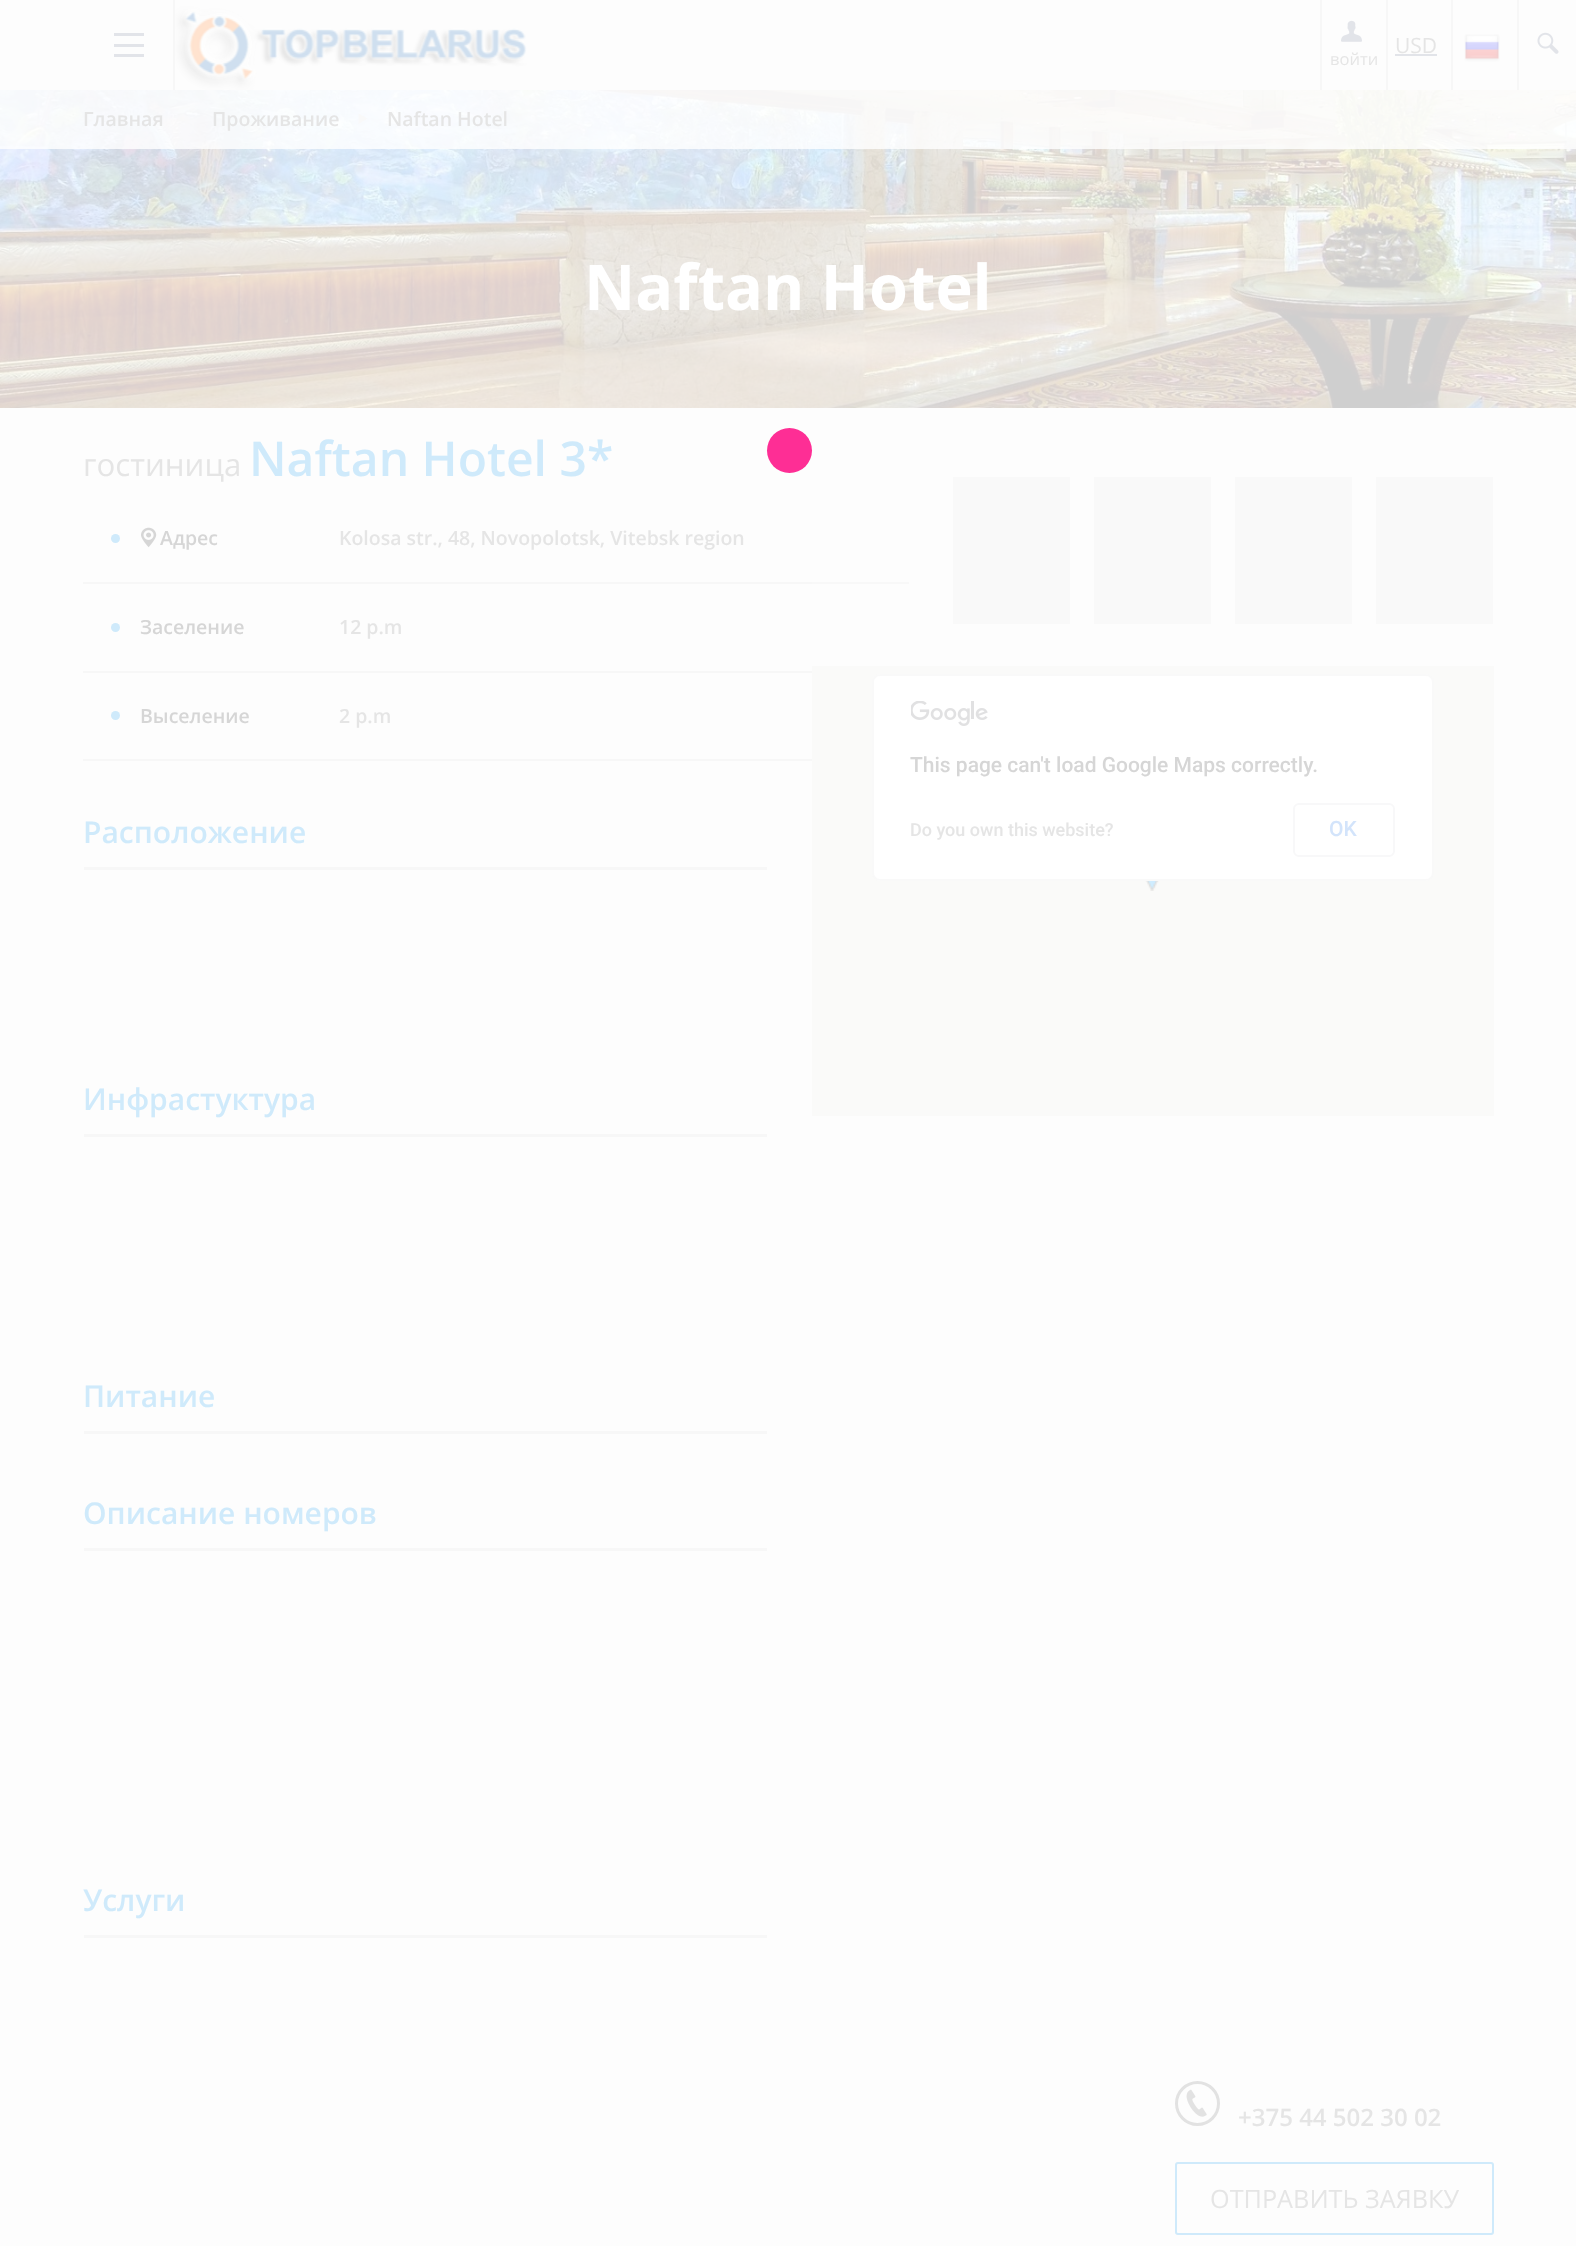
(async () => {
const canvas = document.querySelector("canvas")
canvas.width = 1576
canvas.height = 2246
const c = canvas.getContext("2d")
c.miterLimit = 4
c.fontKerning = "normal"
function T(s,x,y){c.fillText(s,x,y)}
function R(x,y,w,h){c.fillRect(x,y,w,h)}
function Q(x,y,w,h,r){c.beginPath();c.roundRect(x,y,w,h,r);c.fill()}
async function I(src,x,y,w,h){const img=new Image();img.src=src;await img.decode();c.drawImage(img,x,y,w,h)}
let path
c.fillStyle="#fdfdfd"
R(0,0,1576,2246)
c.fillStyle="#f7f7f7"
R(173,0,2,90)
c.fillStyle="#e2e4e9"
R(114,33,30,3)
R(114,44,30,3)
R(114,54,30,3)
await I("1.png",175,6,352,84)
c.fillStyle="#f7f7f7"
R(1386,0,2,90)
c.font="21px Open Sans"
c.fillStyle="#e5e5e5"
T("USD",1395,53)
c.fillStyle="#e2e4e9"
R(1395,54,42,2)
c.fillStyle="#f7f7f7"
R(1451,0,2,90)
await I("2.png",1464,34,36,28)
R(1517,0,2,90)
await I("3.png",1537,32,22,22)
R(1320,0,2,90)
await I("4.png",1341,20,21,22)
c.font="16.5px Open Sans"
c.fillStyle="#e5e5e5"
T("войти",1330,65)
await I("5.png",0,90,1576,318)
c.fillStyle="#ffffffcc"
R(0,90,1576,59)
c.font="600 19.5px Open Sans"
c.fillStyle="#e5e5e5"
T("Главная",83,126)
T("Проживание",212,126)
c.fillStyle="#f9f9f9"
path = new Path2D("M358.5 124v-10.5l9 5z")
c.fill(path)
c.fillStyle="#e5e5e5"
T("Naftan Hotel",387,126)
c.font="bold 63px Open Sans"
c.fillStyle="#fff"
T("Naftan Hotel",584,310)
c.fillStyle="#fe2e95"
c.beginPath()
c.arc(789.5,450.5,22.5,0,7)
c.fill()
c.font="31.25px Open Sans"
c.fillStyle="#e5e5e5"
T("гостиница",83,476)
c.font="600 48px Open Sans"
c.fillStyle="#cfeafb"
T("Naftan Hotel 3*",249,476)
c.fillStyle="#f7f7f7"
R(83,582,729,2)
c.fillStyle="#f8f8f8"
R(812,582,97,2)
c.fillStyle="#cfeafb"
c.beginPath()
c.arc(115.5,538.5,4.5,0,7)
c.fill()
await I("6.png",141,527,16,21)
c.font="600 19.5px Open Sans"
c.fillStyle="#d6d6d6"
T("Адрес",160,545)
c.fillStyle="#e5e5e5"
T("Kolosa str., 48, Novopolotsk, Vitebsk region",339,545)
c.fillStyle="#f7f7f7"
R(83,671,729,2)
c.fillStyle="#cfeafb"
c.beginPath()
c.arc(115.5,627.5,4.5,0,7)
c.fill()
c.fillStyle="#d6d6d6"
T("Заселение",140,634)
c.fillStyle="#e5e5e5"
T("12 p.m",339,634)
c.fillStyle="#f7f7f7"
R(83,759,729,2)
c.fillStyle="#cfeafb"
c.beginPath()
c.arc(115.5,715.5,4.5,0,7)
c.fill()
c.fillStyle="#d6d6d6"
T("Выселение",140,723)
c.fillStyle="#e5e5e5"
T("2 p.m",339,723)
c.fillStyle="#f7f7f7"
R(84,867,683,3)
c.font="600 30px Open Sans"
c.fillStyle="#cfeafb"
T("Расположение",83,843)
c.fillStyle="#f7f7f7"
R(84,1134,683,3)
c.fillStyle="#cfeafb"
T("Инфрастуктура",83,1110)
c.fillStyle="#f7f7f7"
R(84,1431,683,3)
c.fillStyle="#cfeafb"
T("Питание",83,1407)
c.fillStyle="#f7f7f7"
R(84,1548,683,3)
c.fillStyle="#cfeafb"
T("Описание номеров",83,1524)
c.fillStyle="#f7f7f7"
R(84,1935,683,3)
c.fillStyle="#cfeafb"
T("Услуги",83,1911)
c.fillStyle="#f9f9f9"
R(953,477,117,147)
R(1094,477,117,147)
R(1235,477,117,147)
R(1376,477,117,147)
c.fillStyle="#fafaf9"
R(812,666,682,450)
await I("7.png",1145,881,14,10)
c.fillStyle="#fff"
Q(872,674,562,207,8)
c.beginPath()
c.roundRect(873,675,560,205,7)
c.strokeStyle="#cfcfcf1f"
c.lineWidth=2
c.stroke()
await I("8.png",911,701,77,25)
c.font="500 21px Roboto"
c.fillStyle="#d6d6d6"
T("This page can't load Google Maps correctly.",910,772)
c.font="500 18px Roboto"
c.fillStyle="#e5e5e5"
T("Do you own this website?",910,836)
c.beginPath()
c.roundRect(1294,804,100,52,5)
c.strokeStyle="#f8f8f9"
c.stroke()
c.font="500 21px Roboto"
c.fillStyle="#d3e4fb"
T("OK",1329,836)
c.beginPath()
c.arc(1197.5,2103.5,21,0,7)
c.strokeStyle="#e2e2e2"
c.lineWidth=3
c.stroke()
await I("9.png",1186,2089,21,28)
c.font="600 24px Open Sans"
c.fillStyle="#e5e5e5"
T("+375 44 502 30 02",1238,2126)
c.beginPath()
c.roundRect(1176,2163,317,71,2)
c.strokeStyle="#cfeafb"
c.lineWidth=2
c.stroke()
c.font="25.25px Open Sans"
T("ОТПРАВИТЬ ЗАЯВКУ",1210,2208)
})()
